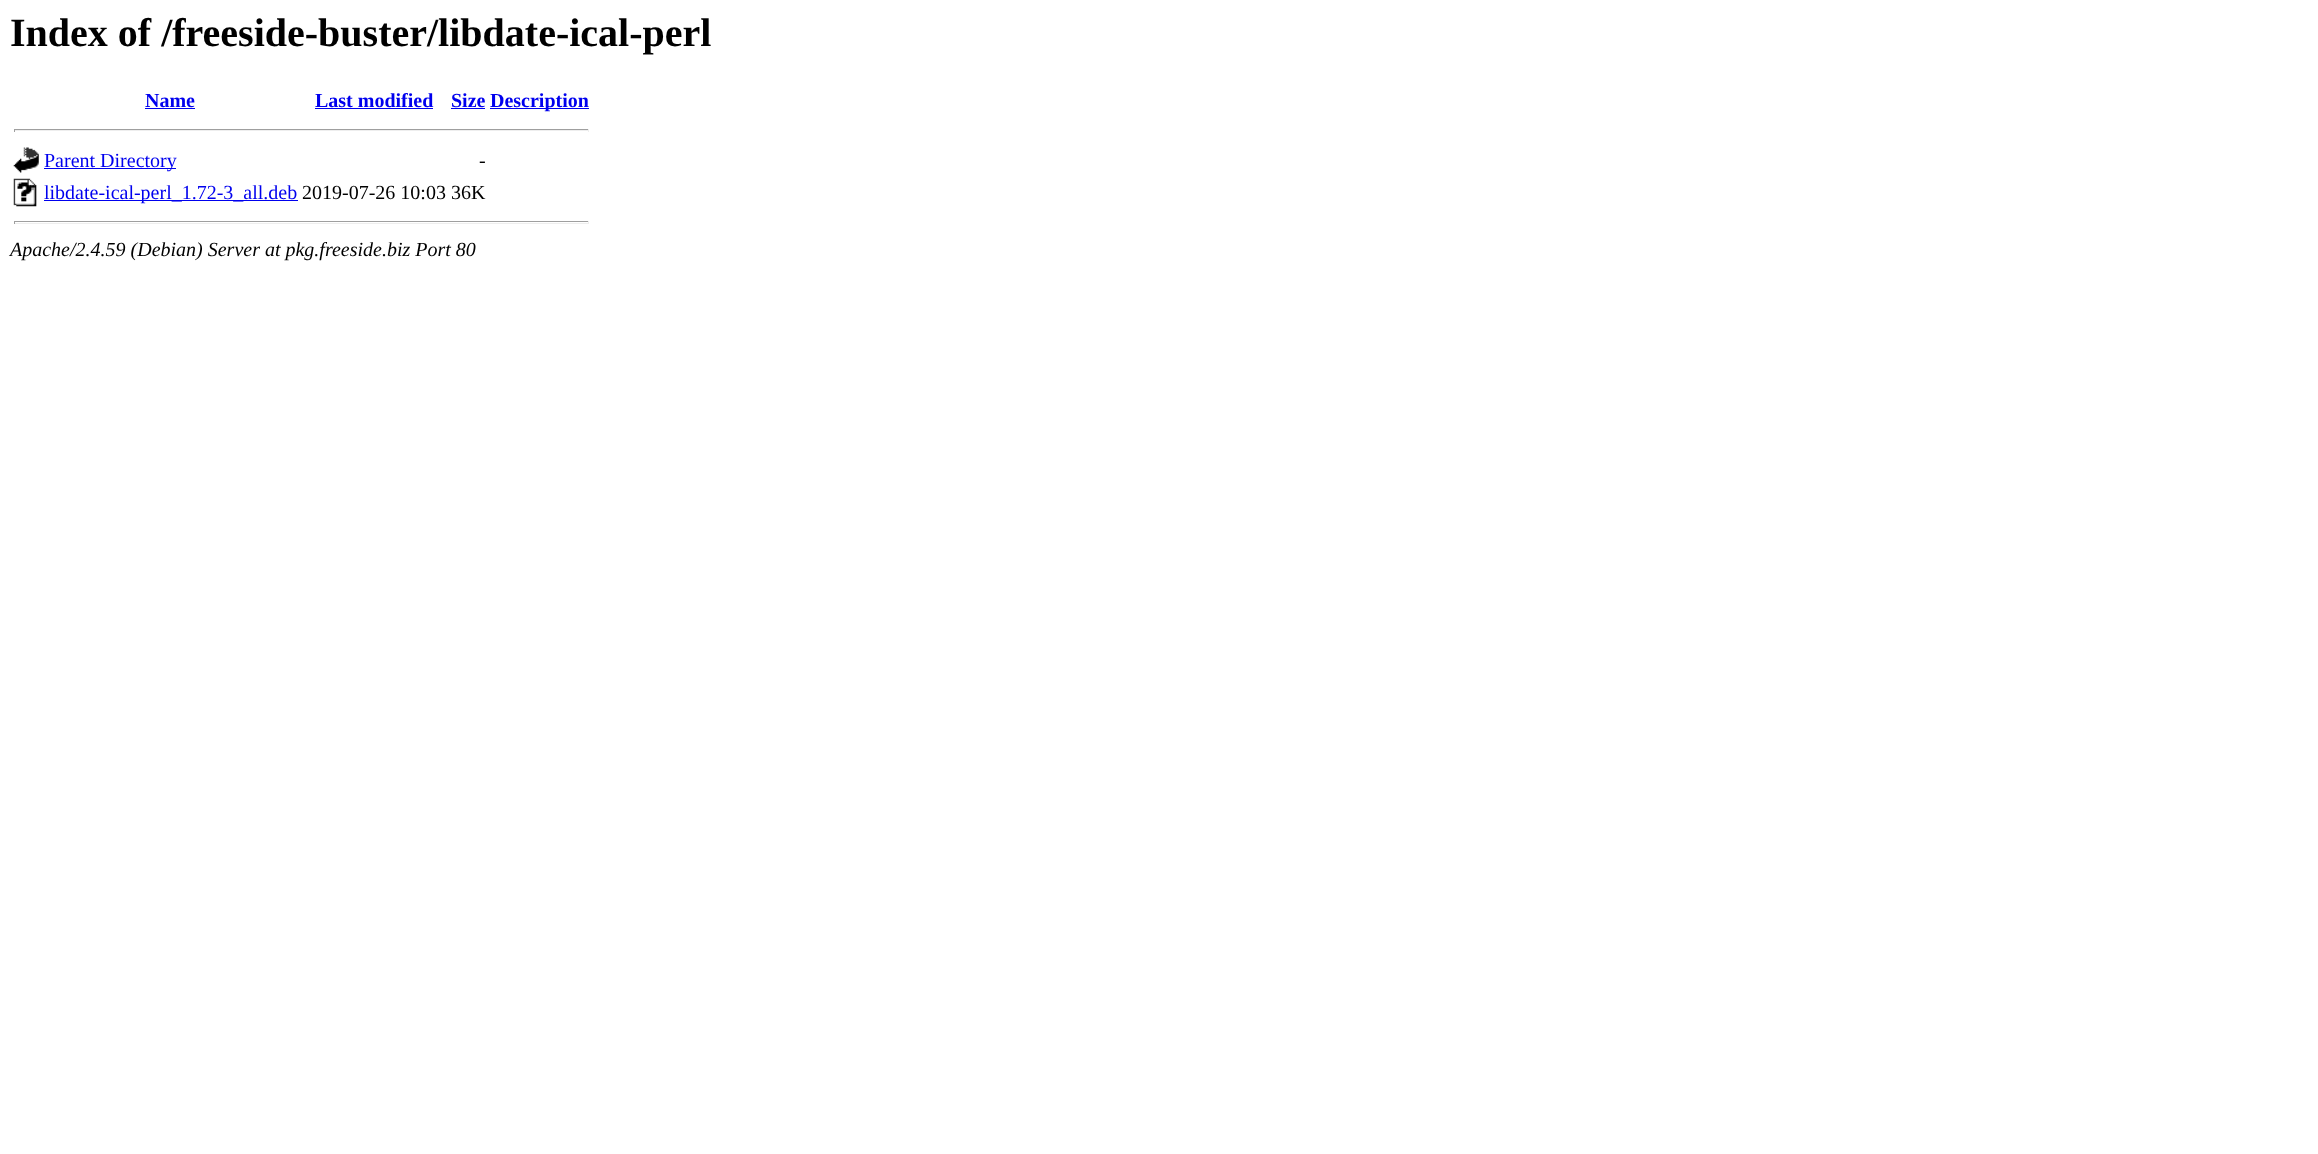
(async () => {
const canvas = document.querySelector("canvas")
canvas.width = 2318
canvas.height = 1154
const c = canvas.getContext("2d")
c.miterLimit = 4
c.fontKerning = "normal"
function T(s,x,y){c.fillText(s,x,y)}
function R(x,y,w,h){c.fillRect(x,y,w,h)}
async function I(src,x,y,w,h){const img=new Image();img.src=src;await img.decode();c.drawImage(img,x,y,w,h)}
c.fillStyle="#fff"
R(0,0,2318,1154)
c.font="bold 40px Liberation Serif"
c.fillStyle="#000"
T("Index of /freeside-buster/libdate-ical-perl",10,46)
c.font="bold 20px Liberation Serif"
c.fillStyle="#00e"
T("Name",145,107)
R(145,108,50,1)
T("Last modified",315,107)
R(315,108,118,1)
T("Size",451,107)
R(451,108,34,1)
R(490,108,99,1)
T("Description",490,107)
c.fillStyle="#9f9f9f"
R(14,129,575,1)
c.fillStyle="#eee"
R(588,129,1,3)
R(14,130,575,1)
c.fillStyle="#9f9f9f"
R(14,129,1,3)
await I("1.png",13,147,26,26)
c.fillStyle="#00e"
R(44,168,132,1)
c.font="20px Liberation Serif"
T("Parent Directory",44,167)
c.fillStyle="#000"
T("-",479,167)
await I("2.png",13,178,24,29)
c.fillStyle="#00e"
R(44,200,254,1)
T("libdate-ical-perl_1.72-3_all.deb",44,199)
c.fillStyle="#000"
T("2019-07-26 10:03 36K",302,199)
c.fillStyle="#9f9f9f"
R(14,221,575,1)
c.fillStyle="#eee"
R(588,221,1,3)
R(14,223,575,1)
c.fillStyle="#9f9f9f"
R(14,221,1,3)
c.font="italic 20px Liberation Serif"
c.fillStyle="#000"
T("Apache/2.4.59 (Debian) Server at pkg.freeside.biz Port 80",10,256)
})()
